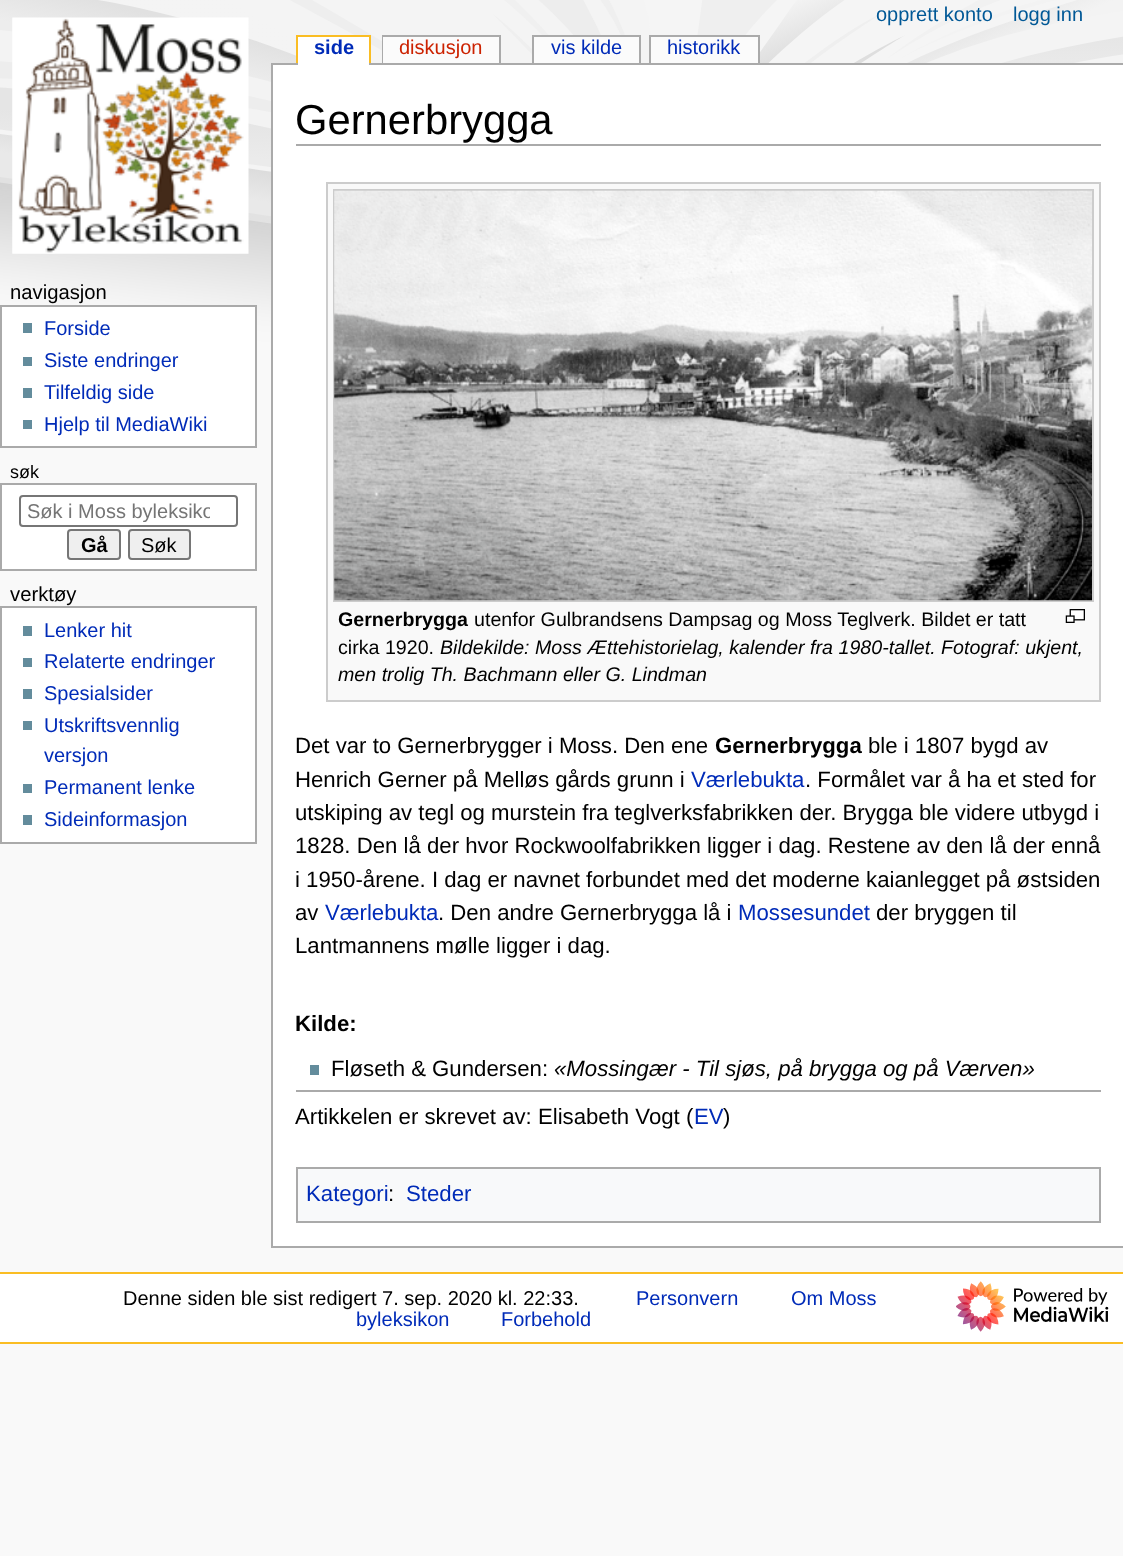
(async () => {
const canvas = document.querySelector("canvas")
canvas.width = 1123
canvas.height = 1556
const c = canvas.getContext("2d")
c.miterLimit = 4
c.fontKerning = "normal"
function T(s,x,y){c.fillText(s,x,y)}
function R(x,y,w,h){c.fillRect(x,y,w,h)}
async function I(src,x,y,w,h){const img=new Image();img.src=src;await img.decode();c.drawImage(img,x,y,w,h)}
c.fillStyle="#f9f9f9"
R(0,0,1123,1556)
await I("1.png",0,0,1123,367)
await I("2.png",12,17,237,237)
c.fillStyle="#aaa"
R(271,63,852,2)
c.fillStyle="#fff"
R(298,37,71,28)
c.font="bold 20px Liberation Sans"
c.fillStyle="#002bb8"
T("side",314,54)
c.fillStyle="#fabd23"
R(296,35,75,2)
R(369,35,2,28)
R(296,35,2,28)
c.fillStyle="#aaa"
R(382,35,119,2)
R(382,35,2,28)
c.fillStyle="#fbfbfb"
R(383,37,116,26)
c.font="20px Liberation Sans"
c.fillStyle="#c20"
T("diskusjon",399,54)
c.fillStyle="#aaa"
R(499,35,2,28)
c.fillStyle="#fbfbfb"
R(534,37,105,26)
c.fillStyle="#002bb8"
T("vis kilde",551,54)
c.fillStyle="#aaa"
R(532,35,109,2)
R(639,35,2,28)
R(532,35,2,28)
c.fillStyle="#fbfbfb"
R(651,37,107,26)
c.fillStyle="#002bb8"
T("historikk",667,54)
c.fillStyle="#aaa"
R(649,35,111,2)
R(758,35,2,28)
R(649,35,2,28)
c.fillStyle="#005896"
T("opprett konto",876,21)
T("logg inn",1013,21)
c.font="20.25px Liberation Sans"
c.fillStyle="#000"
T("navigasjon",10,299)
c.fillStyle="#fff"
c.beginPath()
c.rect(1,306,255,141)
c.fill()
c.strokeStyle="#aaa"
c.lineWidth=2
c.stroke()
c.fillStyle="#638c9c"
R(23,323,9,10)
c.font="20px Liberation Sans"
c.fillStyle="#002bb8"
T("Forside",44,335)
c.fillStyle="#638c9c"
R(23,357,9,9)
c.fillStyle="#002bb8"
T("Siste endringer",44,367)
c.fillStyle="#638c9c"
R(23,388,9,10)
c.fillStyle="#002bb8"
T("Tilfeldig side",44,399)
c.fillStyle="#638c9c"
R(23,420,9,9)
c.fillStyle="#002bb8"
T("Hjelp til MediaWiki",44,431)
c.font="18px Liberation Sans"
c.fillStyle="#000"
T("søk",10,478)
c.fillStyle="#fff"
c.beginPath()
c.rect(1,484,255,86)
c.fill()
c.stroke()
c.beginPath()
c.roundRect(20,496,217,30,3)
c.strokeStyle="#767676"
c.stroke()
c.save()
c.beginPath()
c.rect(26,501,184,21)
c.clip()
c.font="20px Liberation Sans"
c.fillStyle="#757575"
T("Søk i Moss byleksiko",27,518)
c.restore()
c.fillStyle="#efefef"
c.beginPath()
c.roundRect(68,530,52,29,3)
c.fill()
c.stroke()
c.font="bold 20px Liberation Sans"
c.fillStyle="#000"
T("Gå",81,552)
c.fillStyle="#efefef"
c.beginPath()
c.roundRect(129,530,61,29,3)
c.fill()
c.stroke()
c.font="20px Liberation Sans"
c.fillStyle="#000"
T("Søk",141,552)
c.font="20.25px Liberation Sans"
T("verktøy",10,601)
c.fillStyle="#fff"
c.beginPath()
c.rect(1,607,255,236)
c.fill()
c.strokeStyle="#aaa"
c.stroke()
c.fillStyle="#638c9c"
R(23,626,9,10)
c.font="20px Liberation Sans"
c.fillStyle="#002bb8"
T("Lenker hit",44,637)
c.fillStyle="#638c9c"
R(23,658,9,9)
c.fillStyle="#002bb8"
T("Relaterte endringer",44,668)
c.fillStyle="#638c9c"
R(23,689,9,10)
c.fillStyle="#002bb8"
T("Spesialsider",44,700)
c.fillStyle="#638c9c"
R(23,721,9,9)
c.fillStyle="#002bb8"
T("Utskriftsvennlig",44,732)
T("versjon",44,762)
c.fillStyle="#638c9c"
R(23,784,9,9)
c.fillStyle="#002bb8"
T("Permanent lenke",44,794)
c.fillStyle="#638c9c"
R(23,815,9,10)
c.fillStyle="#002bb8"
T("Sideinformasjon",44,826)
c.fillStyle="#fff"
R(273,65,850,1181)
c.fillStyle="#aaa"
R(271,1246,852,2)
R(271,63,2,1185)
R(296,144,805,2)
c.font="41.75px Liberation Sans"
c.fillStyle="#000"
T("Gernerbrygga",295,134)
c.fillStyle="#f9f9f9"
R(328,184,771,516)
c.fillStyle="#ccc"
R(326,182,775,2)
R(326,700,775,2)
R(1099,182,2,520)
R(326,182,2,520)
c.strokeStyle="#ccc"
c.strokeRect(334,190,759,411)
await I("3.png",334,190,758,411)
await I("4.png",1065,609,20,14)
c.font="bold 19.65px Liberation Sans"
c.fillStyle="#000"
T("Gernerbrygga",338,626)
c.font="19.65px Liberation Sans"
T("utenfor Gulbrandsens Dampsag og Moss Teglverk. Bildet er tatt",474,626)
T("cirka 1920.",338,654)
c.font="italic 19.65px Liberation Sans"
T("Bildekilde: Moss Ættehistorielag, kalender fra 1980-tallet. Fotograf: ukjent,",440,654)
T("men trolig Th. Bachmann eller G. Lindman",338,681)
c.font="22.2px Liberation Sans"
T("Det var to Gernerbrygger i Moss. Den ene",295,753)
c.font="bold 22.2px Liberation Sans"
T("Gernerbrygga",715,753)
c.font="22.2px Liberation Sans"
T("ble i 1807 bygd av",868,753)
T("Henrich Gerner på Melløs gårds grunn i",295,787)
c.fillStyle="#002bb8"
T("Værlebukta",691,787)
c.fillStyle="#000"
T(". Formålet var å ha et sted for",805,787)
T("utskiping av tegl og murstein fra teglverksfabrikken der. Brygga ble videre utbygd i",295,820)
T("1828. Den lå der hvor Rockwoolfabrikken ligger i dag. Restene av den lå der ennå",295,853)
T("i 1950-årene. I dag er navnet forbundet med det moderne kaianlegget på østsiden",295,887)
T("av",295,920)
c.fillStyle="#002bb8"
T("Værlebukta",325,920)
c.fillStyle="#000"
T(". Den andre Gernerbrygga lå i",438,920)
c.fillStyle="#002bb8"
T("Mossesundet",738,920)
c.fillStyle="#000"
T("der bryggen til",876,920)
T("Lantmannens mølle ligger i dag.",295,953)
c.font="bold 22.2px Liberation Sans"
T("Kilde:",295,1031)
c.fillStyle="#638c9c"
R(310,1065,9,10)
c.font="22.2px Liberation Sans"
c.fillStyle="#000"
T("Fløseth & Gundersen:",331,1076)
c.font="italic 22.2px Liberation Sans"
T("«Mossingær - Til sjøs, på brygga og på Værven»",554,1076)
c.fillStyle="#aaa"
R(296,1090,805,2)
c.font="22.2px Liberation Sans"
c.fillStyle="#000"
T("Artikkelen er skrevet av: Elisabeth Vogt (",295,1124)
c.fillStyle="#002bb8"
T("EV",694,1124)
c.fillStyle="#000"
T(")",723,1124)
c.fillStyle="#f8f9fa"
c.beginPath()
c.rect(297,1168,803,54)
c.fill()
c.strokeStyle="#aaa"
c.stroke()
c.fillStyle="#002bb8"
T("Kategori",306,1201)
c.fillStyle="#000"
T(":",388,1201)
c.fillStyle="#002bb8"
T("Steder",406,1201)
c.fillStyle="#fff"
R(0,1274,1123,68)
c.fillStyle="#fabd23"
R(0,1272,1123,2)
R(0,1342,1123,2)
c.font="20px Liberation Sans"
c.fillStyle="#000"
T("Denne siden ble sist redigert 7. sep. 2020 kl. 22:33.",123,1305)
c.fillStyle="#002bb8"
T("Personvern",636,1305)
T("Om Moss",791,1305)
T("byleksikon",356,1326)
T("Forbehold",501,1326)
await I("5.png",956,1281,153,51)
})()
